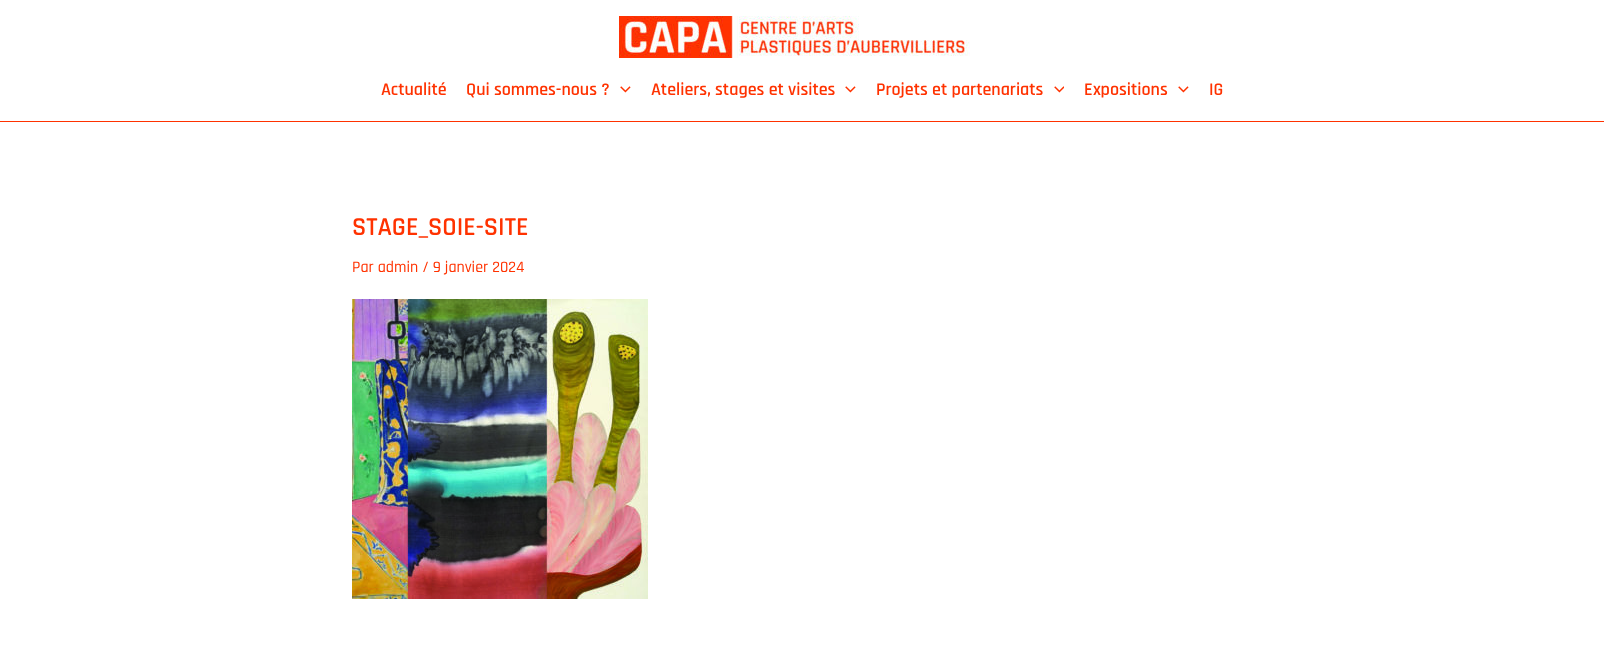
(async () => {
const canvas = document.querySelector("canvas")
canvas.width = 1604
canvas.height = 664
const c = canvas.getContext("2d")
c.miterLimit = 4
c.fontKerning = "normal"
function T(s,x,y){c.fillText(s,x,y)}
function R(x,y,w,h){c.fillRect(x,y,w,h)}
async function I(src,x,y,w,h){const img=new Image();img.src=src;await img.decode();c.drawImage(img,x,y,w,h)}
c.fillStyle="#fff"
R(0,0,1604,664)
await I("1.png",619,16,351,42)
c.fillStyle="#ff3200"
R(0,121,1604,1)
c.font="600 18px Rajdhani"
T("Actualité",381,95)
T("Qui sommes-nous ?",466,95)
await I("2.png",620,86,11,7)
T("Ateliers, stages et visites",651,95)
await I("2.png",845,86,11,7)
T("Projets et partenariats",876,95)
await I("3.png",1054,86,10,7)
T("Expositions",1084,95)
await I("2.png",1178,86,11,7)
T("IG",1209,95)
c.font="600 26px Rajdhani"
T("STAGE_SOIE-SITE",352,235)
c.font="500 16px Rajdhani"
T("Par admin / 9 janvier 2024",352,272)
await I("4.png",352,299,296,300)
})()
